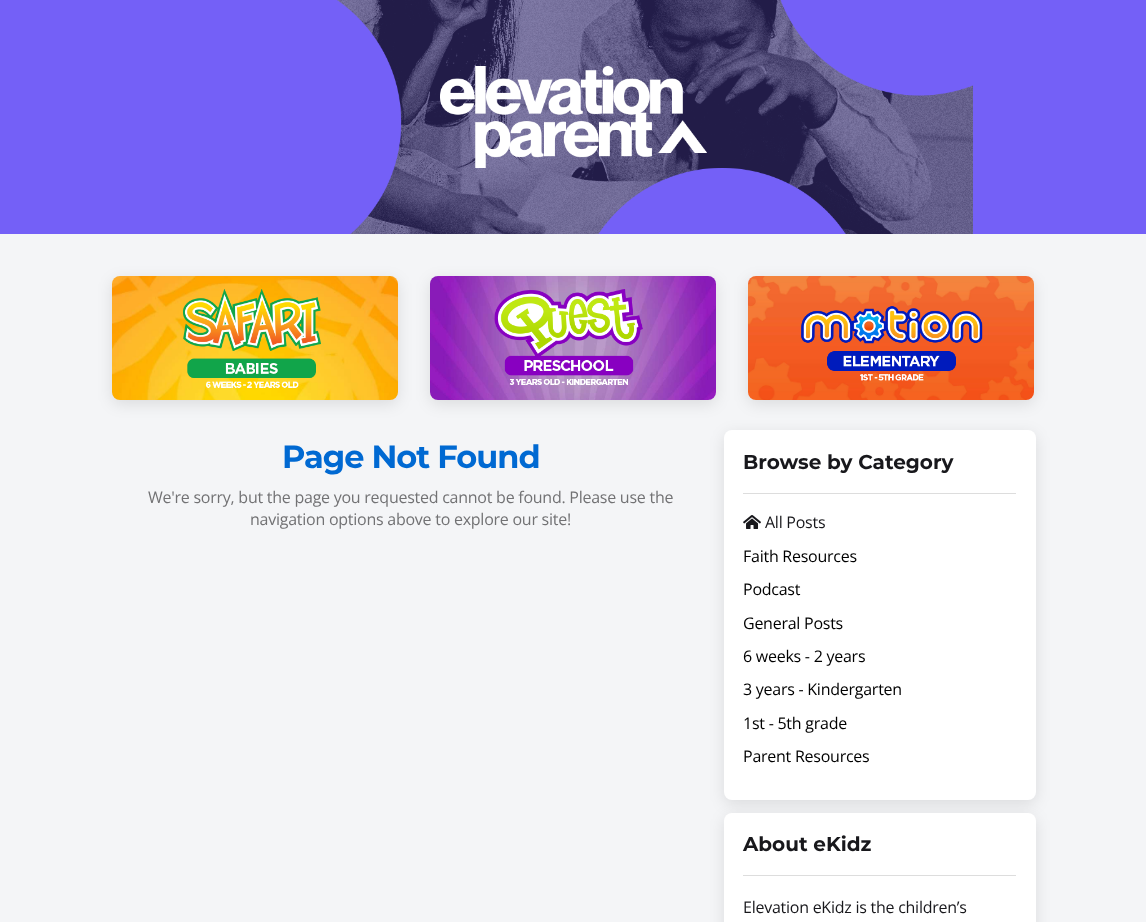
(async () => {
const canvas = document.querySelector("canvas")
canvas.width = 1146
canvas.height = 922
const c = canvas.getContext("2d")
c.miterLimit = 4
c.fontKerning = "normal"
function T(s,x,y){c.fillText(s,x,y)}
function R(x,y,w,h){c.fillRect(x,y,w,h)}
function Q(x,y,w,h,r){c.beginPath();c.roundRect(x,y,w,h,r);c.fill()}
async function I(src,x,y,w,h){const img=new Image();img.src=src;await img.decode();c.drawImage(img,x,y,w,h)}
c.fillStyle="#f4f5f7"
R(0,0,1146,922)
c.fillStyle="#7460f7"
R(0,0,1146,234)
await I("1.png",337,0,636,234)
c.fillStyle="#0000001a"
c.filter="blur(7.5px)"
c.beginPath()
c.roundRect(112,280,286,124,8)
c.fill()
c.filter="none"
await I("2.png",112,276,286,124)
await I("3.png",183,289,138,99)
c.filter="blur(7.5px)"
c.beginPath()
c.roundRect(430,280,286,124,8)
c.fill()
c.filter="none"
await I("4.png",430,276,286,124)
await I("5.png",494,289,149,96)
c.filter="blur(7.5px)"
c.beginPath()
c.roundRect(748,280,286,124,8)
c.fill()
c.filter="none"
await I("6.png",748,276,286,124)
await I("7.png",801,306,182,75)
c.letterSpacing="-1px"
c.font="bold 32px Montserrat"
c.fillStyle="#0069d2"
T("Page Not Found",282,468)
c.letterSpacing="-0.25px"
c.font="16px Open Sans"
c.fillStyle="#727274"
T("We're sorry, but the page you requested cannot be found. Please use the",148,503)
T("navigation options above to explore our site!",250,525)
c.fillStyle="#0000001a"
c.filter="blur(7.5px)"
c.beginPath()
c.roundRect(724,434,312,370,8)
c.fill()
c.filter="none"
c.fillStyle="#fff"
Q(724,430,312,370,8)
c.letterSpacing="0px"
c.font="bold 20px Montserrat"
c.fillStyle="#18181c"
T("Browse by Category",743,469)
c.fillStyle="#ddd"
R(743,493,273,1)
await I("8.png",743,515,18,14)
c.letterSpacing="-0.25px"
c.font="16px Open Sans"
c.fillStyle="#18181c"
T("All Posts",765,528)
c.fillStyle="#000"
T("Faith Resources",743,562)
T("Podcast",743,595)
T("General Posts",743,629)
T("6 weeks - 2 years",743,662)
T("3 years - Kindergarten",743,695)
T("1st - 5th grade",743,729)
T("Parent Resources",743,762)
c.fillStyle="#0000001a"
c.filter="blur(7.5px)"
c.beginPath()
c.roundRect(724,817,312,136,8)
c.fill()
c.filter="none"
c.fillStyle="#fff"
Q(724,813,312,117,8)
c.letterSpacing="0px"
c.font="bold 20px Montserrat"
c.fillStyle="#18181c"
T("About eKidz",743,851)
c.fillStyle="#ddd"
R(743,875,273,1)
c.letterSpacing="-0.25px"
c.font="16px Open Sans"
c.fillStyle="#18181c"
T("Elevation eKidz is the children’s",743,913)
})()
